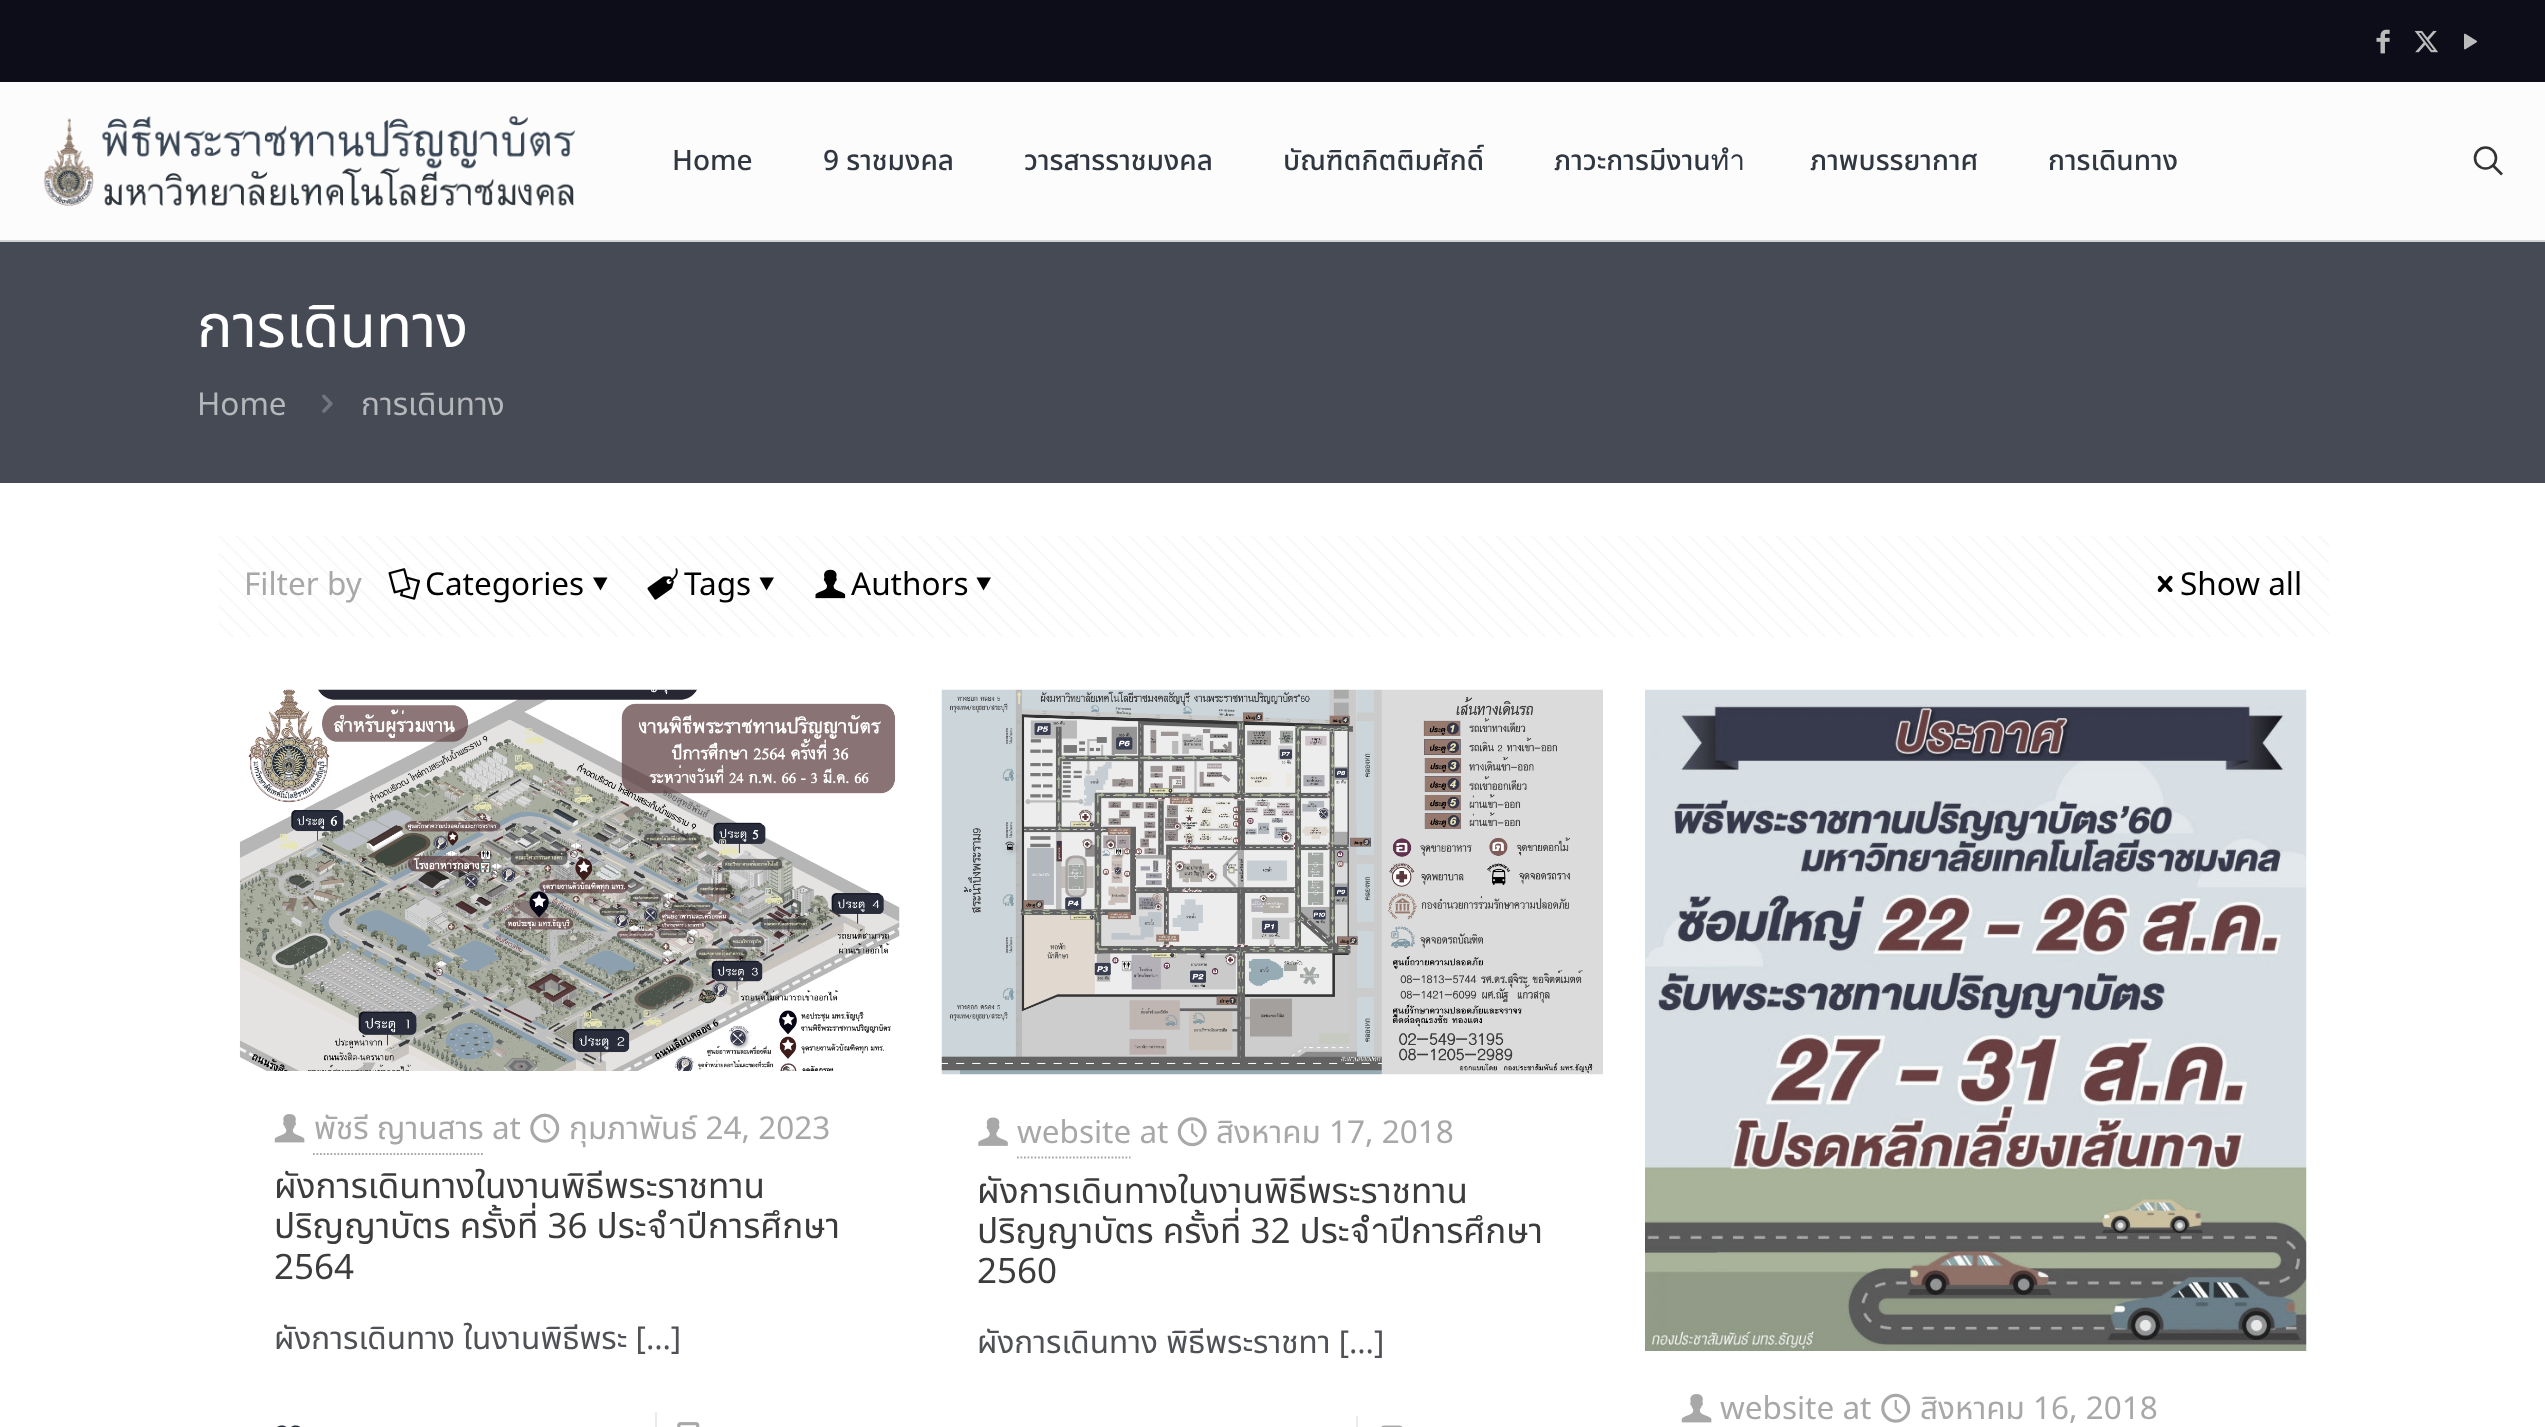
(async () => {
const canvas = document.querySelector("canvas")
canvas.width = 2545
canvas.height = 1427
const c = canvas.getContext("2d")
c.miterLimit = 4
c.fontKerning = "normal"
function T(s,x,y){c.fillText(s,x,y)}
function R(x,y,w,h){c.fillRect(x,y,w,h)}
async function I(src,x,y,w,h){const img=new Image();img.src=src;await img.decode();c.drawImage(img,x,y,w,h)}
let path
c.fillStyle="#fff"
R(0,0,2545,1427)
c.fillStyle="#0c0d19"
R(0,0,2545,82)
await I("1.png",2376,29,14,25)
await I("2.png",2414,30,25,23)
await I("3.png",2464,33,14,17)
c.fillStyle="#fcfcfc"
R(0,82,2545,158)
c.fillStyle="#d3d3d3"
R(0,240,2545,2)
await I("4.png",43,116,533,90)
c.font="500 28px Noto Sans Thai"
c.fillStyle="#313741"
T("Home",672,170)
T("9 ราชมงคล",823,170)
T("วารสารราชมงคล",1024,170)
T("บัณฑิตกิตติมศักดิ์",1283,170)
T("ภาวะการมีงานทำ",1554,170)
T("ภาพบรรยากาศ",1810,170)
T("การเดินทาง",2048,170)
c.beginPath()
c.arc(2485.5,158,10.5,0,7)
c.strokeStyle="#333"
c.lineWidth=2.6
c.stroke()
path = new Path2D("M2493 165.5l9 9")
c.stroke(path)
c.fillStyle="#454a55"
R(0,242,2545,241)
c.font="59.5px Noto Sans Thai"
c.fillStyle="#fff"
T("การเดินทาง",197,347)
c.font="31.5px Noto Sans Thai"
c.fillStyle="#b5b7bb"
T("Home",197,415)
await I("5.png",322,394,11,19)
T("การเดินทาง",361,415)
await I("6.png",219,536,2110,101)
c.fillStyle="#a8a8a8"
T("Filter by",244,595)
await I("7.png",388,568,32,32)
c.fillStyle="#000"
T("Categories",425,595)
path = new Path2D("M607.5 577.5l-7 13l-7.5-13z")
c.fill(path)
await I("8.png",647,568,31,32)
T("Tags",684,595)
path = new Path2D("M774 577.5l-7.5 13l-7-13z")
c.fill(path)
await I("9.png",815,569,31,30)
T("Authors",851,595)
path = new Path2D("M991 577.5l-7.5 13l-7-13z")
c.fill(path)
await I("10.png",2157,575,16,18)
T("Show all",2180,595)
await I("11.png",239,689,661,382)
await I("12.png",274,1114,31,29)
c.fillStyle="#a8a8a8"
T("พัชรี ญานสาร at",314,1139)
path = new Path2D("M313 1154h170")
c.strokeStyle="#a8a8a8"
c.lineWidth=1.8
c.setLineDash([1.75,1.75])
c.stroke(path)
await I("13.png",530,1113,30,30)
T("กุมภาพันธ์ 24, 2023",569,1139)
c.font="35px Noto Sans Thai"
c.fillStyle="#3c3c3e"
T("ผังการเดินทางในงานพิธีพระราชทาน",274,1198)
T("ปริญญาบัตร ครั้งที่ 36 ประจำปีการศึกษา",274,1238)
T("2564",274,1279)
c.font="31.5px Noto Sans Thai"
c.fillStyle="#4f5156"
T("ผังการเดินทาง ในงานพิธีพระ […]",274,1349)
await I("14.png",277,1425,24,2)
c.fillStyle="#ebebeb"
R(655,1412,2,15)
await I("15.png",677,1422,23,5)
await I("16.png",941,689,662,386)
await I("17.png",978,1117,30,29)
c.fillStyle="#a8a8a8"
T("website at",1017,1143)
path = new Path2D("M1017 1157.5h113.5")
c.stroke(path)
await I("18.png",1177,1117,30,30)
T("สิงหาคม 17, 2018",1216,1143)
c.font="35px Noto Sans Thai"
c.fillStyle="#3c3c3e"
T("ผังการเดินทางในงานพิธีพระราชทาน",977,1203)
T("ปริญญาบัตร ครั้งที่ 32 ประจำปีการศึกษา",977,1243)
T("2560",977,1283)
c.font="31.5px Noto Sans Thai"
c.fillStyle="#4f5156"
T("ผังการเดินทาง พิธีพระราชทา […]",977,1353)
c.fillStyle="#ebebeb"
R(1356,1416,2,11)
await I("19.png",1381,1425,22,2)
await I("20.png",1645,689,662,662)
await I("12.png",1681,1394,31,29)
c.fillStyle="#a8a8a8"
T("website at",1720,1419)
await I("13.png",1881,1393,30,30)
T("สิงหาคม 16, 2018",1920,1419)
})()
